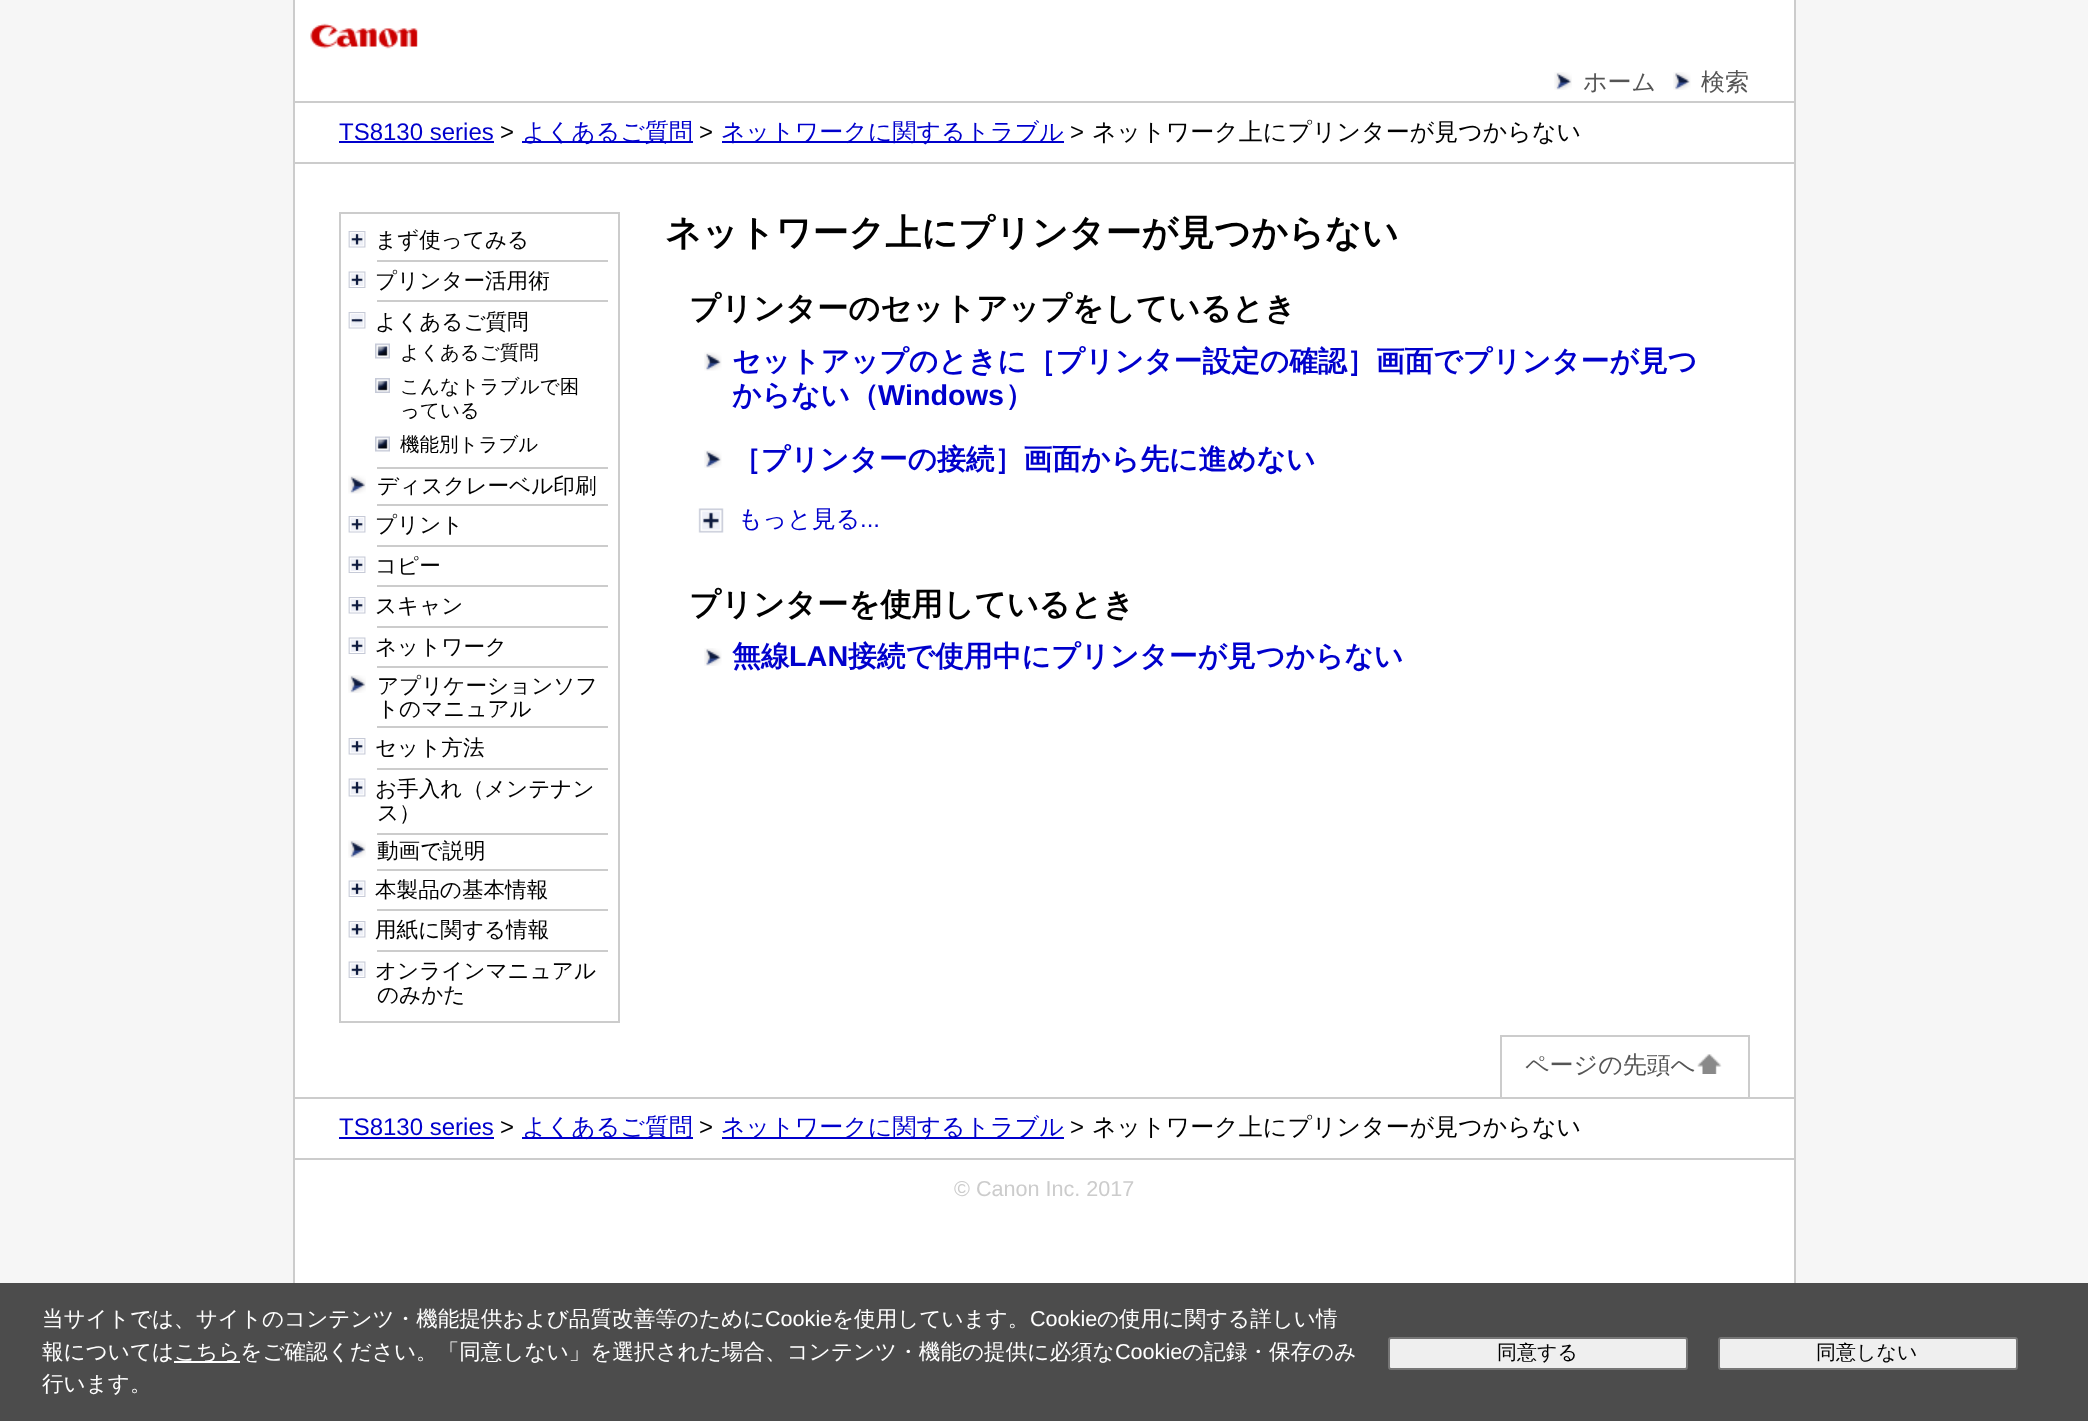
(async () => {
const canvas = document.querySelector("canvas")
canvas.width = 2088
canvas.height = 1421
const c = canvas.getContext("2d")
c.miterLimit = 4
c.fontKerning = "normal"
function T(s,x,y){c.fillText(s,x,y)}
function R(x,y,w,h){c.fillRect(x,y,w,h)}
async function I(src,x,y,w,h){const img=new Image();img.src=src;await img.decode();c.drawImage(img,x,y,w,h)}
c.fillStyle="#f6f6f6"
R(0,0,2088,1421)
c.fillStyle="#fff"
R(295,0,1499,1283)
c.fillStyle="#ccc"
R(1794,0,2,1283)
R(293,0,2,1283)
await I("1.png",310,23,108,26)
R(294,162,1500,2)
await I("2.png",1554,72,18,18)
c.font="500 24px WenQuanYi Zen Hei"
c.fillStyle="#555"
T("ホーム",1583,90)
await I("3.png",1673,72,18,18)
T("検索",1701,90)
c.fillStyle="#ccc"
R(294,101,1500,2)
c.font="24px Liberation Sans"
c.fillStyle="#00c"
T("TS8130 series",339,140)
R(339,141,155,2)
c.fillStyle="#000"
T(">",500,140)
c.fillStyle="#00c"
R(522,141,171,2)
c.font="500 24px WenQuanYi Zen Hei"
T("よくあるご質問",522,140)
c.font="24px Liberation Sans"
c.fillStyle="#000"
T(">",699,140)
c.fillStyle="#00c"
R(722,141,342,2)
c.font="500 24px WenQuanYi Zen Hei"
T("ネットワークに関するトラブル",721,140)
c.font="24px Liberation Sans"
c.fillStyle="#000"
T(">",1070,140)
c.font="500 24px WenQuanYi Zen Hei"
T("ネットワーク上にプリンターが見つからない",1092,140)
c.strokeStyle="#ccc"
c.lineWidth=2
c.strokeRect(340,213,279,809)
c.fillStyle="#ccc"
R(377,260,231,2)
await I("4.png",348,231,18,17)
c.font="500 21.6px WenQuanYi Zen Hei"
c.fillStyle="#000"
T("まず使ってみる",375,247)
c.fillStyle="#ccc"
R(377,300,231,2)
await I("5.png",348,271,18,17)
c.fillStyle="#000"
T("プリンター活用術",375,288)
c.fillStyle="#ccc"
R(377,467,231,2)
await I("6.png",348,312,18,17)
c.fillStyle="#000"
T("よくあるご質問",375,329)
await I("7.png",375,343,15,16)
c.font="500 19.5px WenQuanYi Zen Hei"
T("よくあるご質問",400,359)
await I("8.png",375,378,15,15)
T("こんなトラブルで困",400,393)
T("っている",400,417)
await I("7.png",375,436,15,16)
T("機能別トラブル",400,451)
c.fillStyle="#ccc"
R(377,504,231,2)
await I("9.png",348,475,18,19)
c.font="500 21.6px WenQuanYi Zen Hei"
c.fillStyle="#000"
T("ディスクレーベル印刷",377,493)
c.fillStyle="#ccc"
R(377,545,231,2)
await I("4.png",348,516,18,17)
c.fillStyle="#000"
T("プリント",375,532)
c.fillStyle="#ccc"
R(377,585,231,2)
await I("5.png",348,556,18,17)
c.fillStyle="#000"
T("コピー",375,573)
c.fillStyle="#ccc"
R(377,626,231,2)
await I("4.png",348,597,18,17)
c.fillStyle="#000"
T("スキャン",375,613)
c.fillStyle="#ccc"
R(377,666,231,2)
await I("5.png",348,637,18,17)
c.fillStyle="#000"
T("ネットワーク",375,654)
c.fillStyle="#ccc"
R(377,726,231,2)
await I("10.png",348,675,18,18)
c.fillStyle="#000"
T("アプリケーションソフ",377,693)
T("トのマニュアル",377,716)
c.fillStyle="#ccc"
R(377,768,231,2)
await I("4.png",348,738,18,17)
c.fillStyle="#000"
T("セット方法",375,755)
c.fillStyle="#ccc"
R(377,833,231,2)
await I("11.png",348,778,18,19)
c.fillStyle="#000"
T("お手入れ（メンテナン",375,796)
T("ス）",377,820)
c.fillStyle="#ccc"
R(377,869,231,2)
await I("10.png",348,840,18,18)
c.fillStyle="#000"
T("動画で説明",377,858)
c.fillStyle="#ccc"
R(377,909,231,2)
await I("5.png",348,880,18,17)
c.fillStyle="#000"
T("本製品の基本情報",375,897)
c.fillStyle="#ccc"
R(377,950,231,2)
await I("4.png",348,921,18,17)
c.fillStyle="#000"
T("用紙に関する情報",375,937)
await I("5.png",348,961,18,17)
T("オンラインマニュアル",375,978)
T("のみかた",377,1002)
c.font="bold 36px WenQuanYi Zen Hei"
T("ネットワーク上にプリンターが見つからない",665,245)
c.font="bold 31.25px WenQuanYi Zen Hei"
T("プリンターのセットアップをしているとき",689,319)
await I("12.png",704,352,18,19)
c.font="bold 28.8px WenQuanYi Zen Hei"
c.fillStyle="#00c"
T("セットアップのときに［プリンター設定の確認］画面でプリンターが見つ",732,371)
T("からない（",732,405)
c.font="bold 28.8px Liberation Sans"
T("Windows",878,405)
c.font="bold 28.8px WenQuanYi Zen Hei"
T("）",1005,405)
await I("13.png",704,450,18,18)
T("［プリンターの接続］画面から先に進めない",732,469)
await I("14.png",698,508,26,25)
c.font="500 24px WenQuanYi Zen Hei"
T("もっと見る",738,527)
c.font="24px Liberation Sans"
T("...",860,527)
c.font="bold 31.25px WenQuanYi Zen Hei"
c.fillStyle="#000"
T("プリンターを使用しているとき",689,615)
await I("13.png",704,648,18,18)
c.font="bold 28.8px WenQuanYi Zen Hei"
c.fillStyle="#00c"
T("無線",732,666)
c.font="bold 28.8px Liberation Sans"
T("LAN",789,666)
c.font="bold 28.8px WenQuanYi Zen Hei"
T("接続で使用中にプリンターが見つからない",848,666)
c.fillStyle="#ccc"
R(294,1158,1500,2)
R(1500,1035,249,2)
R(1748,1035,2,62)
R(1500,1035,2,62)
c.font="500 24px WenQuanYi Zen Hei"
c.fillStyle="#555"
T("ページの先頭へ",1525,1073)
await I("15.png",1697,1054,25,20)
c.fillStyle="#ccc"
R(294,1097,1500,2)
c.font="24px Liberation Sans"
c.fillStyle="#00c"
T("TS8130 series",339,1135)
R(339,1137,155,2)
c.fillStyle="#000"
T(">",500,1135)
c.fillStyle="#00c"
R(522,1137,171,2)
c.font="500 24px WenQuanYi Zen Hei"
T("よくあるご質問",522,1135)
c.font="24px Liberation Sans"
c.fillStyle="#000"
T(">",699,1135)
c.fillStyle="#00c"
R(722,1137,342,2)
c.font="500 24px WenQuanYi Zen Hei"
T("ネットワークに関するトラブル",721,1135)
c.font="24px Liberation Sans"
c.fillStyle="#000"
T(">",1070,1135)
c.font="500 24px WenQuanYi Zen Hei"
T("ネットワーク上にプリンターが見つからない",1092,1135)
c.font="21.6px Liberation Sans"
c.fillStyle="#ccc"
T("© Canon Inc. 2017",954,1196)
c.fillStyle="#4c4c4c"
R(0,1283,2088,138)
c.font="500 21.6px WenQuanYi Zen Hei"
c.fillStyle="#fff"
T("当サイトでは、サイトのコンテンツ・機能提供および品質改善等のために",42,1326)
c.font="21.6px Liberation Sans"
T("Cookie",765,1326)
c.font="500 21.6px WenQuanYi Zen Hei"
T("を使用しています。",832,1326)
c.font="21.6px Liberation Sans"
T("Cookie",1030,1326)
c.font="500 21.6px WenQuanYi Zen Hei"
T("の使用に関する詳しい情",1097,1326)
T("報については",42,1359)
R(174,1361,66,2)
T("こちらをご確認ください。「同意しない」を選択された場合、コンテンツ・機能の提供に必須な",174,1359)
c.font="21.6px Liberation Sans"
T("Cookie",1115,1359)
c.font="500 21.6px WenQuanYi Zen Hei"
T("の記録・保存のみ",1182,1359)
T("行います。",42,1391)
c.fillStyle="#efefef"
c.beginPath()
c.roundRect(1389,1338,298,31,2)
c.fill()
c.strokeStyle="#767676"
c.stroke()
c.font="500 20px WenQuanYi Zen Hei"
c.fillStyle="#000"
T("同意する",1497,1359)
c.fillStyle="#efefef"
c.beginPath()
c.roundRect(1719,1338,298,31,2)
c.fill()
c.stroke()
c.fillStyle="#000"
T("同意しない",1816,1359)
})()
